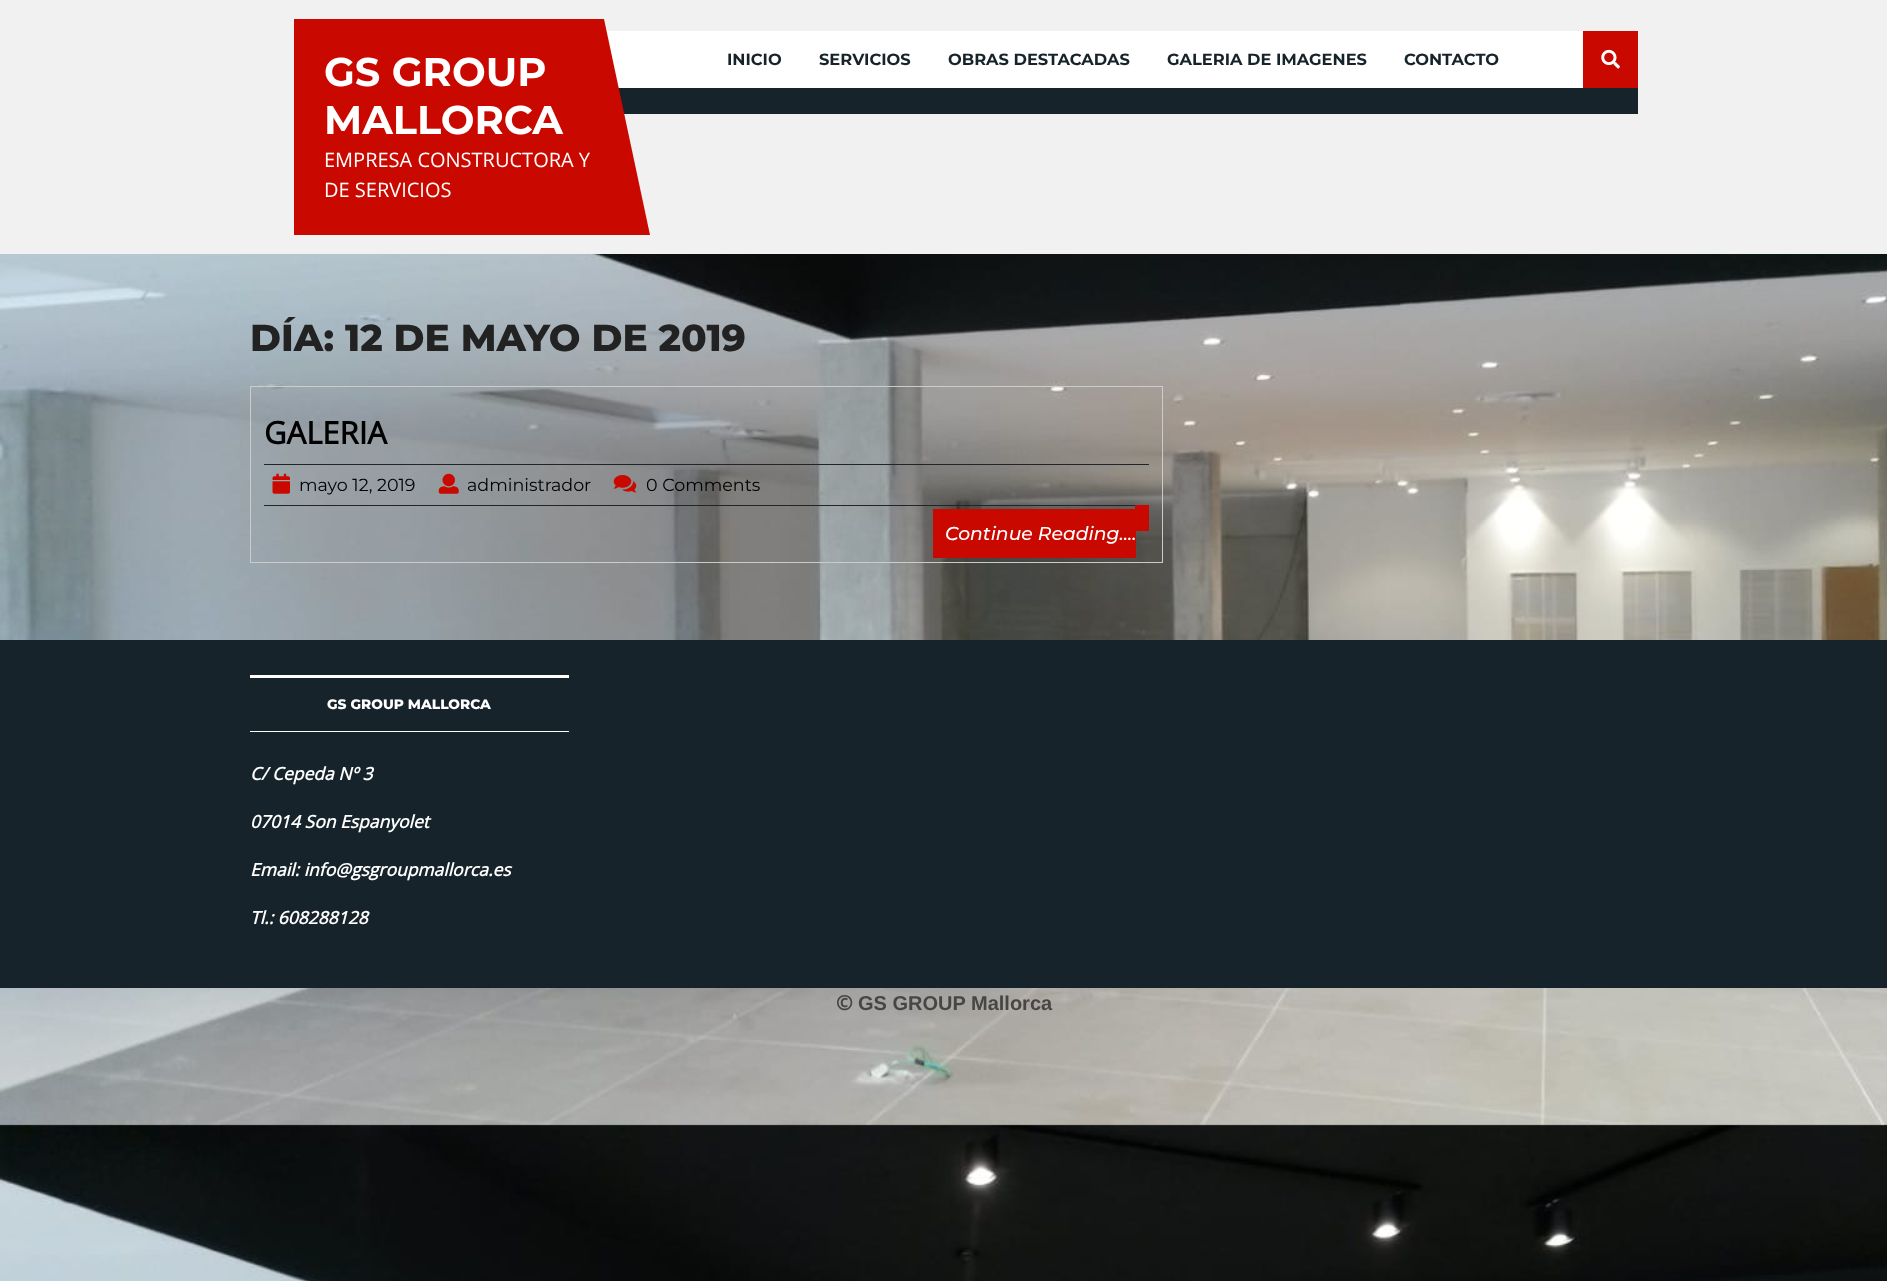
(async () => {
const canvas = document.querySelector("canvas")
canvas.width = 1887
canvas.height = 1281
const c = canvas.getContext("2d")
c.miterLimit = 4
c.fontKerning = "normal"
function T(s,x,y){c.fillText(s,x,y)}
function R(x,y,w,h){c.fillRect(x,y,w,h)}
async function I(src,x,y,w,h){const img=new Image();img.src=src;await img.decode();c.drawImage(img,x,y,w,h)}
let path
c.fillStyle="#fff"
R(0,0,1887,1281)
await I("1.png",0,254,1887,1027)
c.fillStyle="#f1f1f1"
R(0,0,1887,254)
c.fillStyle="#fff"
R(606,31,977,57)
c.fillStyle="#17232a"
R(618,88,1020,26)
c.fillStyle="#c90900"
path = new Path2D("M294 19h310l46 216h-356z")
c.fill(path)
c.font="bold 40px Montserrat"
c.fillStyle="#fff"
T("GS GROUP",324,86)
T("MALLORCA",324,134)
c.font="20px Open Sans"
T("EMPRESA CONSTRUCTORA Y",324,167)
T("DE SERVICIOS",324,197)
c.font="bold 16.25px Montserrat"
c.fillStyle="#17232a"
T("INICIO",727,65)
T("SERVICIOS",819,65)
T("OBRAS DESTACADAS",948,65)
T("GALERIA DE IMAGENES",1167,65)
T("CONTACTO",1404,65)
c.fillStyle="#c90900"
R(1583,31,55,57)
await I("2.png",1601,49,19,20)
c.font="800 37.5px Montserrat"
c.fillStyle="#222"
T("DÍA: 12 DE MAYO DE 2019",250,351)
c.strokeStyle="#ccc"
c.strokeRect(250.5,386.5,912,176)
c.font="bold 31px Open Sans"
c.fillStyle="#000"
T("GALERIA",264,444)
c.fillStyle="#212529"
R(264,464,885,1)
R(264,505,871,1)
await I("3.png",272,473,18,21)
c.font="17.5px Montserrat"
c.fillStyle="#000"
T("mayo 12, 2019",299,491)
await I("4.png",438,473,21,21)
T("administrador",467,491)
await I("5.png",613,475,24,18)
T("0 Comments",646,491)
c.fillStyle="#c90900"
R(933,509,203,49)
c.font="italic 500 18.75px Montserrat"
c.fillStyle="#fff"
T("Continue Reading....",945,540)
c.fillStyle="#c90900"
R(1135,505,14,26)
c.fillStyle="#17232a"
R(0,640,1887,348)
c.fillStyle="#fff"
R(250,675,319,3)
R(250,731,319,1)
c.font="800 13.75px Montserrat"
T("GS GROUP MALLORCA",327,709)
c.font="italic bold 17.5px Open Sans"
T("C/ Cepeda Nº 3",250,780)
T("07014 Son Espanyolet",250,828)
T("Email: info@gsgroupmallorca.es",250,876)
T("Tl.: 608288128",250,924)
c.font="bold 20px Open Sans"
c.fillStyle="#474545"
T("©",836,1010)
c.font="bold 20px Liberation Sans"
T("GS GROUP Mallorca",858,1010)
})()
